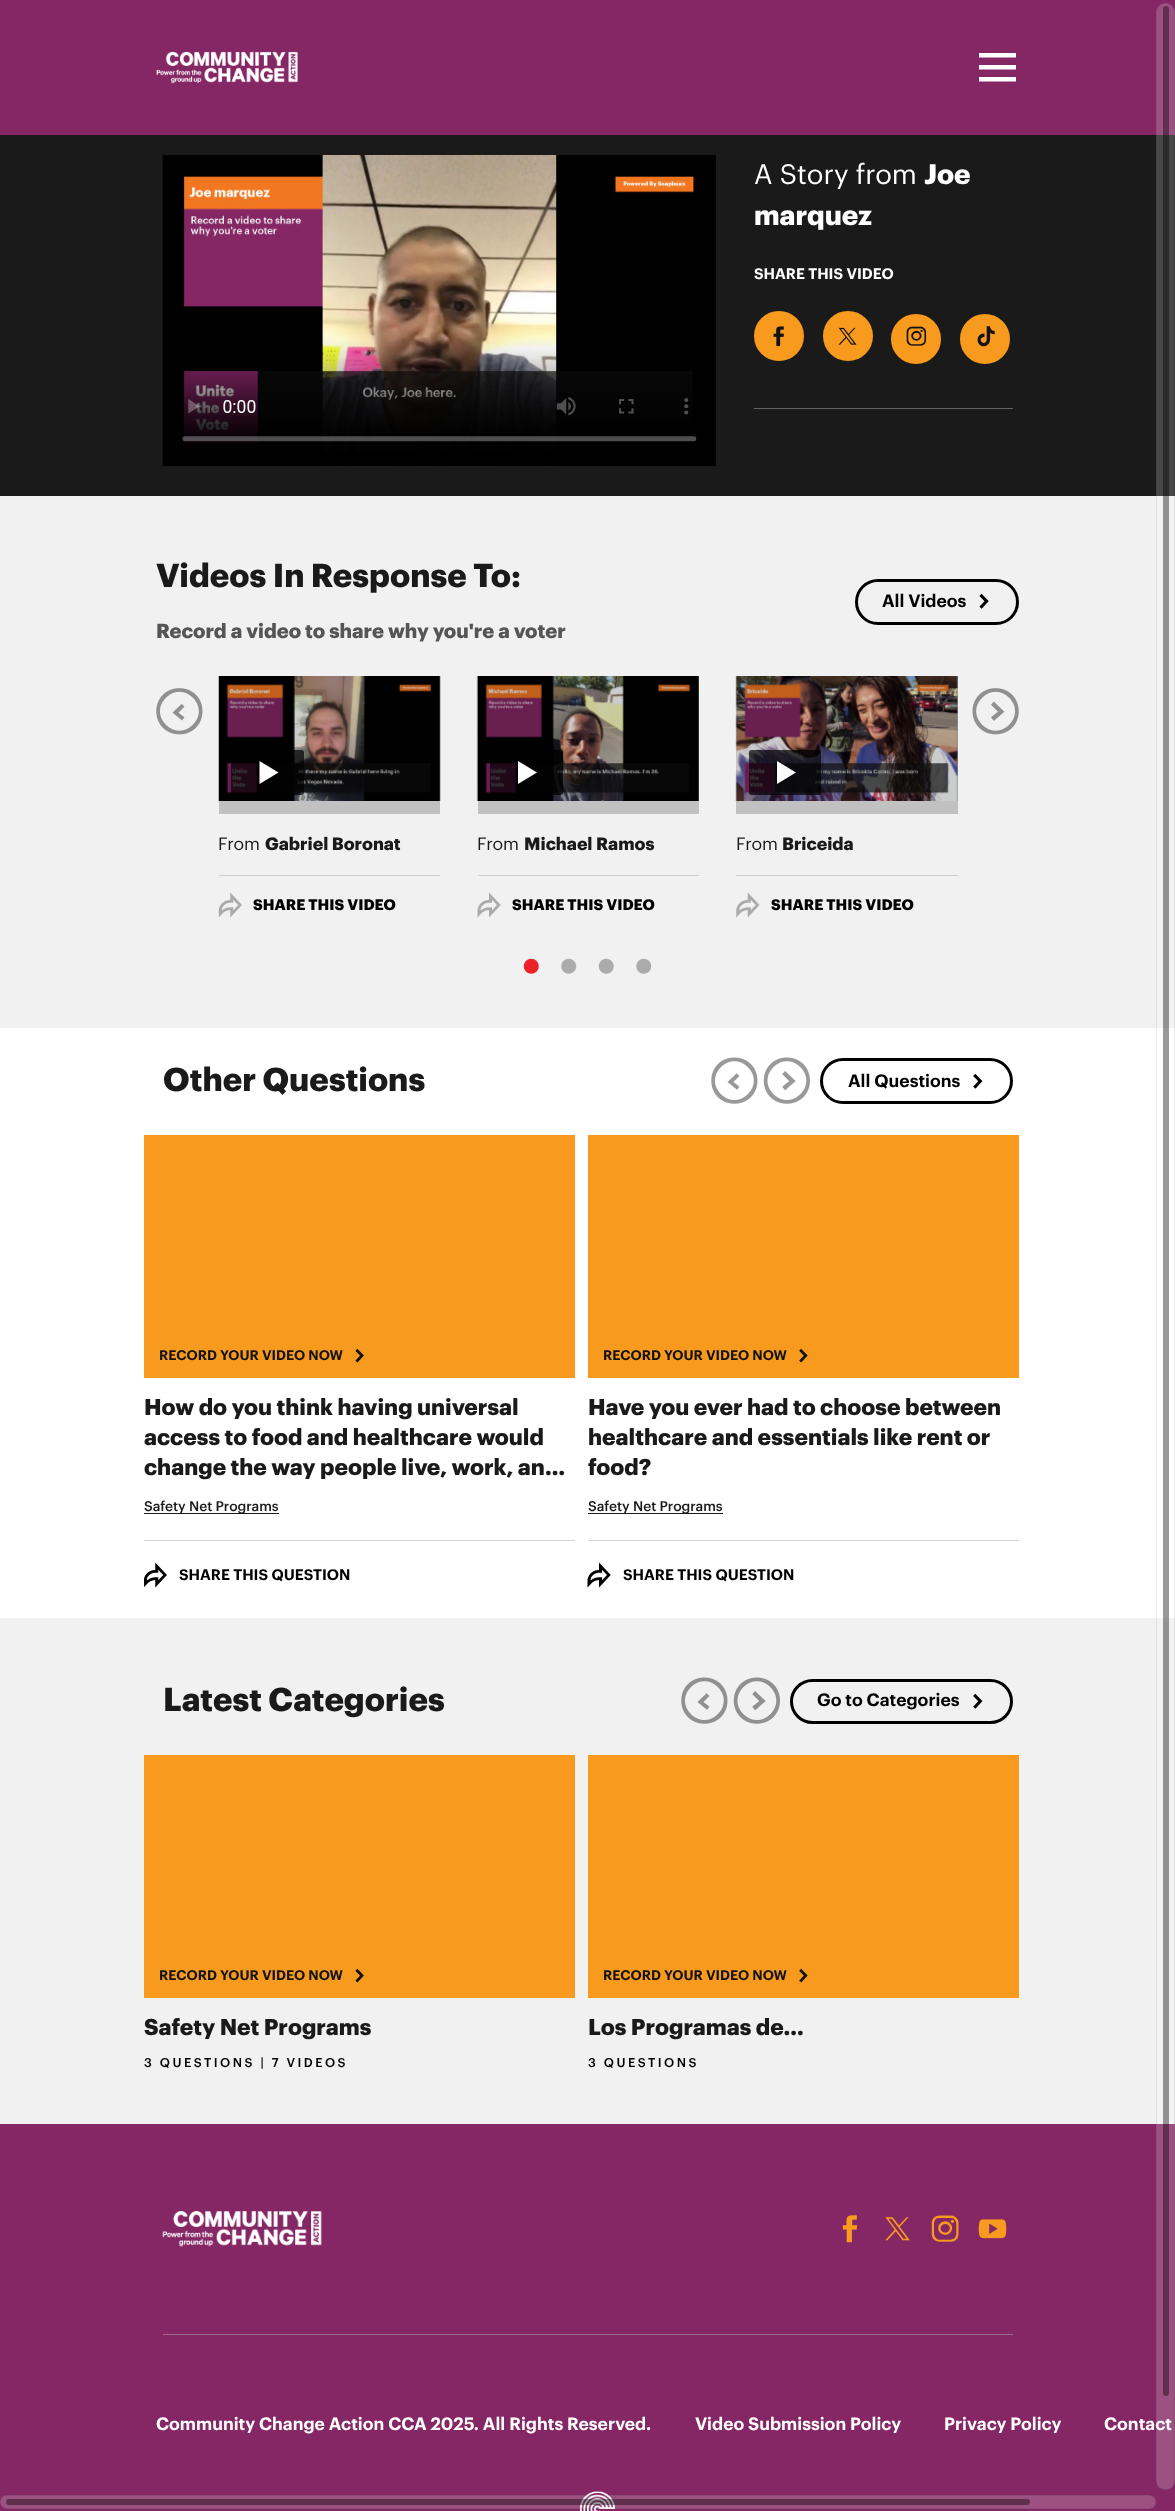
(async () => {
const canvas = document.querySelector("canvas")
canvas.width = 1175
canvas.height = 2511
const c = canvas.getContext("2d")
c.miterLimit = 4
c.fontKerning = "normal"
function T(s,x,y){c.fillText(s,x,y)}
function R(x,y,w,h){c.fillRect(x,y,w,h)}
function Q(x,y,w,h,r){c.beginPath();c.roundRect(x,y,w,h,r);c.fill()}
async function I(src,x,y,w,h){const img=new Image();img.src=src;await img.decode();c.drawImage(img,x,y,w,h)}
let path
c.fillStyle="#fff"
R(0,0,1175,2511)
c.fillStyle="#852665"
R(0,0,1175,135)
c.fillStyle="#1a1a1a"
R(0,135,1175,361)
c.fillStyle="#f1f1f1"
R(0,496,1175,532)
R(0,1618,1175,506)
c.fillStyle="#852665"
R(0,2124,1175,387)
c.font="600 17.5px Graphik"
c.fillStyle="#fff"
T("Contact",1104,2430)
c.fillStyle="#ffffff33"
Q(1156,3,19,2487,9.5)
c.beginPath()
c.roundRect(1156.5,3.5,18,2486,9)
c.strokeStyle="#00000014"
c.stroke()
c.fillStyle="#00000066"
Q(1163,6,6,2390,3)
await I("1.png",156,51,142,33)
c.fillStyle="#fff"
path = new Path2D("M979 53h37v4.5h-37zm0 12h37v4.5h-37zm0 12h37v4.5h-37z")
c.fill(path)
await I("2.png",162,155,554,312)
c.font="27.5px Graphik"
T("A Story from",754,184)
c.font="bold 27.5px Graphik"
T("Joe",924,184)
T("marquez",754,225)
c.font="600 15px Graphik"
T("SHARE THIS VIDEO",754,279)
c.fillStyle="#f89a1e"
c.beginPath()
c.arc(779,336,23.5,0,7)
c.fill()
c.strokeStyle="#f89a1e"
c.lineWidth=3
c.stroke()
await I("3.png",773,326,11,21)
c.beginPath()
c.arc(848,336,23.5,0,7)
c.fill()
c.stroke()
await I("4.png",838,327,19,18)
c.beginPath()
c.arc(916,339,23.5,0,7)
c.fill()
c.stroke()
await I("5.png",906,326,21,20)
c.beginPath()
c.arc(985,339,23.5,0,7)
c.fill()
c.stroke()
await I("6.png",977,326,18,21)
c.fillStyle="#636363"
R(754,408,259,1)
c.fillStyle="#c1c1c1"
R(736,676,222,138)
R(478,676,221,138)
R(219,676,221,138)
c.font="bold 32.5px Graphik"
c.fillStyle="#1a1a1a"
T("Videos In Response To:",156,587)
c.font="bold 20px Graphik"
c.fillStyle="#555"
T("Record a video to share why you're a voter",156,638)
c.beginPath()
c.roundRect(856.5,580.5,161,43,21.5)
c.strokeStyle="#000"
c.stroke()
c.font="600 17.5px Graphik"
c.fillStyle="#000"
T("All Videos",882,607)
await I("7.png",979,593,10,16)
await I("8.png",156,688,47,47)
await I("9.png",972,688,47,47)
await I("10.png",218,676,223,125)
c.fillStyle="#000000b3"
Q(231,750,73,45,2.5)
c.fillStyle="#fff"
path = new Path2D("M278.5 772.5l-19 11.5v-23z")
c.fill(path)
c.font="17.5px Graphik"
c.fillStyle="#1a1a1a"
T("From",218,850)
c.font="bold 17.5px Graphik"
T("Gabriel Boronat",265,850)
c.fillStyle="#cecece"
R(219,875,221,1)
await I("11.png",218,892,24,26)
c.font="bold 15px Graphik"
c.fillStyle="#000"
T("SHARE THIS VIDEO",253,910)
await I("12.png",476,676,223,125)
c.fillStyle="#000000b3"
Q(490,750,73,45,2.5)
c.fillStyle="#fff"
path = new Path2D("M537 772.5l-19 11.5v-23z")
c.fill(path)
c.font="17.5px Graphik"
c.fillStyle="#1a1a1a"
T("From",477,850)
c.font="bold 17.5px Graphik"
T("Michael Ramos",524,850)
c.fillStyle="#cecece"
R(478,875,221,1)
await I("13.png",477,892,24,26)
c.font="bold 15px Graphik"
c.fillStyle="#000"
T("SHARE THIS VIDEO",512,910)
await I("14.png",735,676,223,125)
c.fillStyle="#000000b3"
Q(749,750,72,45,2.5)
c.fillStyle="#fff"
path = new Path2D("M796 772.5l-19 11.5v-23z")
c.fill(path)
c.font="17.5px Graphik"
c.fillStyle="#1a1a1a"
T("From",736,850)
c.font="bold 17.5px Graphik"
T("Briceida",782,850)
c.fillStyle="#cecece"
R(736,875,222,1)
await I("15.png",736,892,24,26)
c.font="bold 15px Graphik"
c.fillStyle="#000"
T("SHARE THIS VIDEO",771,910)
await I("16.png",523,958,16,16)
await I("17.png",561,958,16,16)
await I("18.png",598,958,16,16)
await I("17.png",636,958,16,16)
c.font="bold 32.5px Graphik"
c.fillStyle="#1a1a1a"
T("Other Questions",163,1091)
await I("19.png",711,1057,47,47)
await I("20.png",763,1057,47,47)
c.beginPath()
c.roundRect(821.5,1059.5,190,43,21.5)
c.stroke()
c.font="600 17.5px Graphik"
c.fillStyle="#000"
T("All Questions",848,1087)
await I("21.png",973,1073,10,16)
c.fillStyle="#f89a1e"
R(144,1135,431,243)
c.font="600 13.75px Graphik"
c.fillStyle="#121212"
T("RECORD YOUR VIDEO NOW",159,1360)
await I("22.png",355,1348,9,15)
c.font="bold 22.5px Graphik"
c.fillStyle="#1a1a1a"
T("How do you think having universal",144,1415)
T("access to food and healthcare would",144,1445)
T("change the way people live, work, an…",144,1475)
R(144,1513,135,1)
c.font="500 13.75px Graphik"
T("Safety Net Programs",144,1511)
c.fillStyle="#d5d5d5"
R(144,1540,431,1)
await I("23.png",144,1562,23,26)
c.font="600 15px Graphik"
c.fillStyle="#000"
T("SHARE THIS QUESTION",179,1580)
c.fillStyle="#f89a1e"
R(588,1135,431,243)
c.font="600 13.75px Graphik"
c.fillStyle="#121212"
T("RECORD YOUR VIDEO NOW",603,1360)
await I("24.png",799,1348,9,15)
c.font="bold 22.5px Graphik"
c.fillStyle="#1a1a1a"
T("Have you ever had to choose between",588,1415)
T("healthcare and essentials like rent or",588,1445)
c.save()
c.beginPath()
c.rect(588,1393,431,90)
c.clip()
T("food?",588,1475)
c.restore()
R(588,1513,135,1)
c.font="500 13.75px Graphik"
T("Safety Net Programs",588,1511)
c.fillStyle="#d5d5d5"
R(588,1540,431,1)
await I("25.png",587,1562,24,26)
c.font="600 15px Graphik"
c.fillStyle="#000"
T("SHARE THIS QUESTION",623,1580)
c.font="bold 32.5px Graphik"
c.fillStyle="#1a1a1a"
T("Latest Categories",163,1711)
await I("26.png",681,1677,47,47)
await I("27.png",733,1677,47,47)
c.beginPath()
c.roundRect(791.5,1680.5,220,42,21)
c.stroke()
c.font="600 17.5px Graphik"
c.fillStyle="#000"
T("Go to Categories",817,1706)
await I("28.png",973,1693,10,16)
c.fillStyle="#f89a1e"
R(144,1755,431,243)
c.font="600 13.75px Graphik"
c.fillStyle="#121212"
T("RECORD YOUR VIDEO NOW",159,1980)
await I("22.png",355,1968,9,15)
c.font="bold 22.5px Graphik"
c.fillStyle="#1a1a1a"
T("Safety Net Programs",144,2035)
c.letterSpacing="2.5px"
c.font="500 12.5px Graphik"
c.fillStyle="#000"
T("3 QUESTIONS | 7 VIDEOS",144,2067)
c.fillStyle="#f89a1e"
R(588,1755,431,243)
c.letterSpacing="0px"
c.font="600 13.75px Graphik"
c.fillStyle="#121212"
T("RECORD YOUR VIDEO NOW",603,1980)
await I("24.png",799,1968,9,15)
c.font="bold 22.5px Graphik"
c.fillStyle="#1a1a1a"
T("Los Programas de...",588,2035)
c.letterSpacing="2.5px"
c.font="500 12.5px Graphik"
c.fillStyle="#000"
T("3 QUESTIONS",588,2067)
await I("29.png",162,2211,160,36)
await I("30.png",842,2215,16,28)
await I("31.png",885,2217,25,24)
await I("32.png",931,2215,28,27)
await I("33.png",978,2219,29,20)
c.fillStyle="#986988"
R(163,2334,850,1)
c.letterSpacing="0px"
c.font="600 17.5px Graphik"
c.fillStyle="#fff"
T("Community Change Action CCA 2025. All Rights Reserved.",156,2430)
T("Video Submission Policy",695,2430)
T("Privacy Policy",944,2430)
await I("34.png",580,2491,35,20)
c.fillStyle="#ffffff33"
Q(0,2495,1156,14,7)
c.beginPath()
c.roundRect(.5,2495.5,1155,13,6.5)
c.strokeStyle="#00000014"
c.lineWidth=1
c.stroke()
c.fillStyle="#00000066"
Q(6,2499,1024,6,3)
})()
